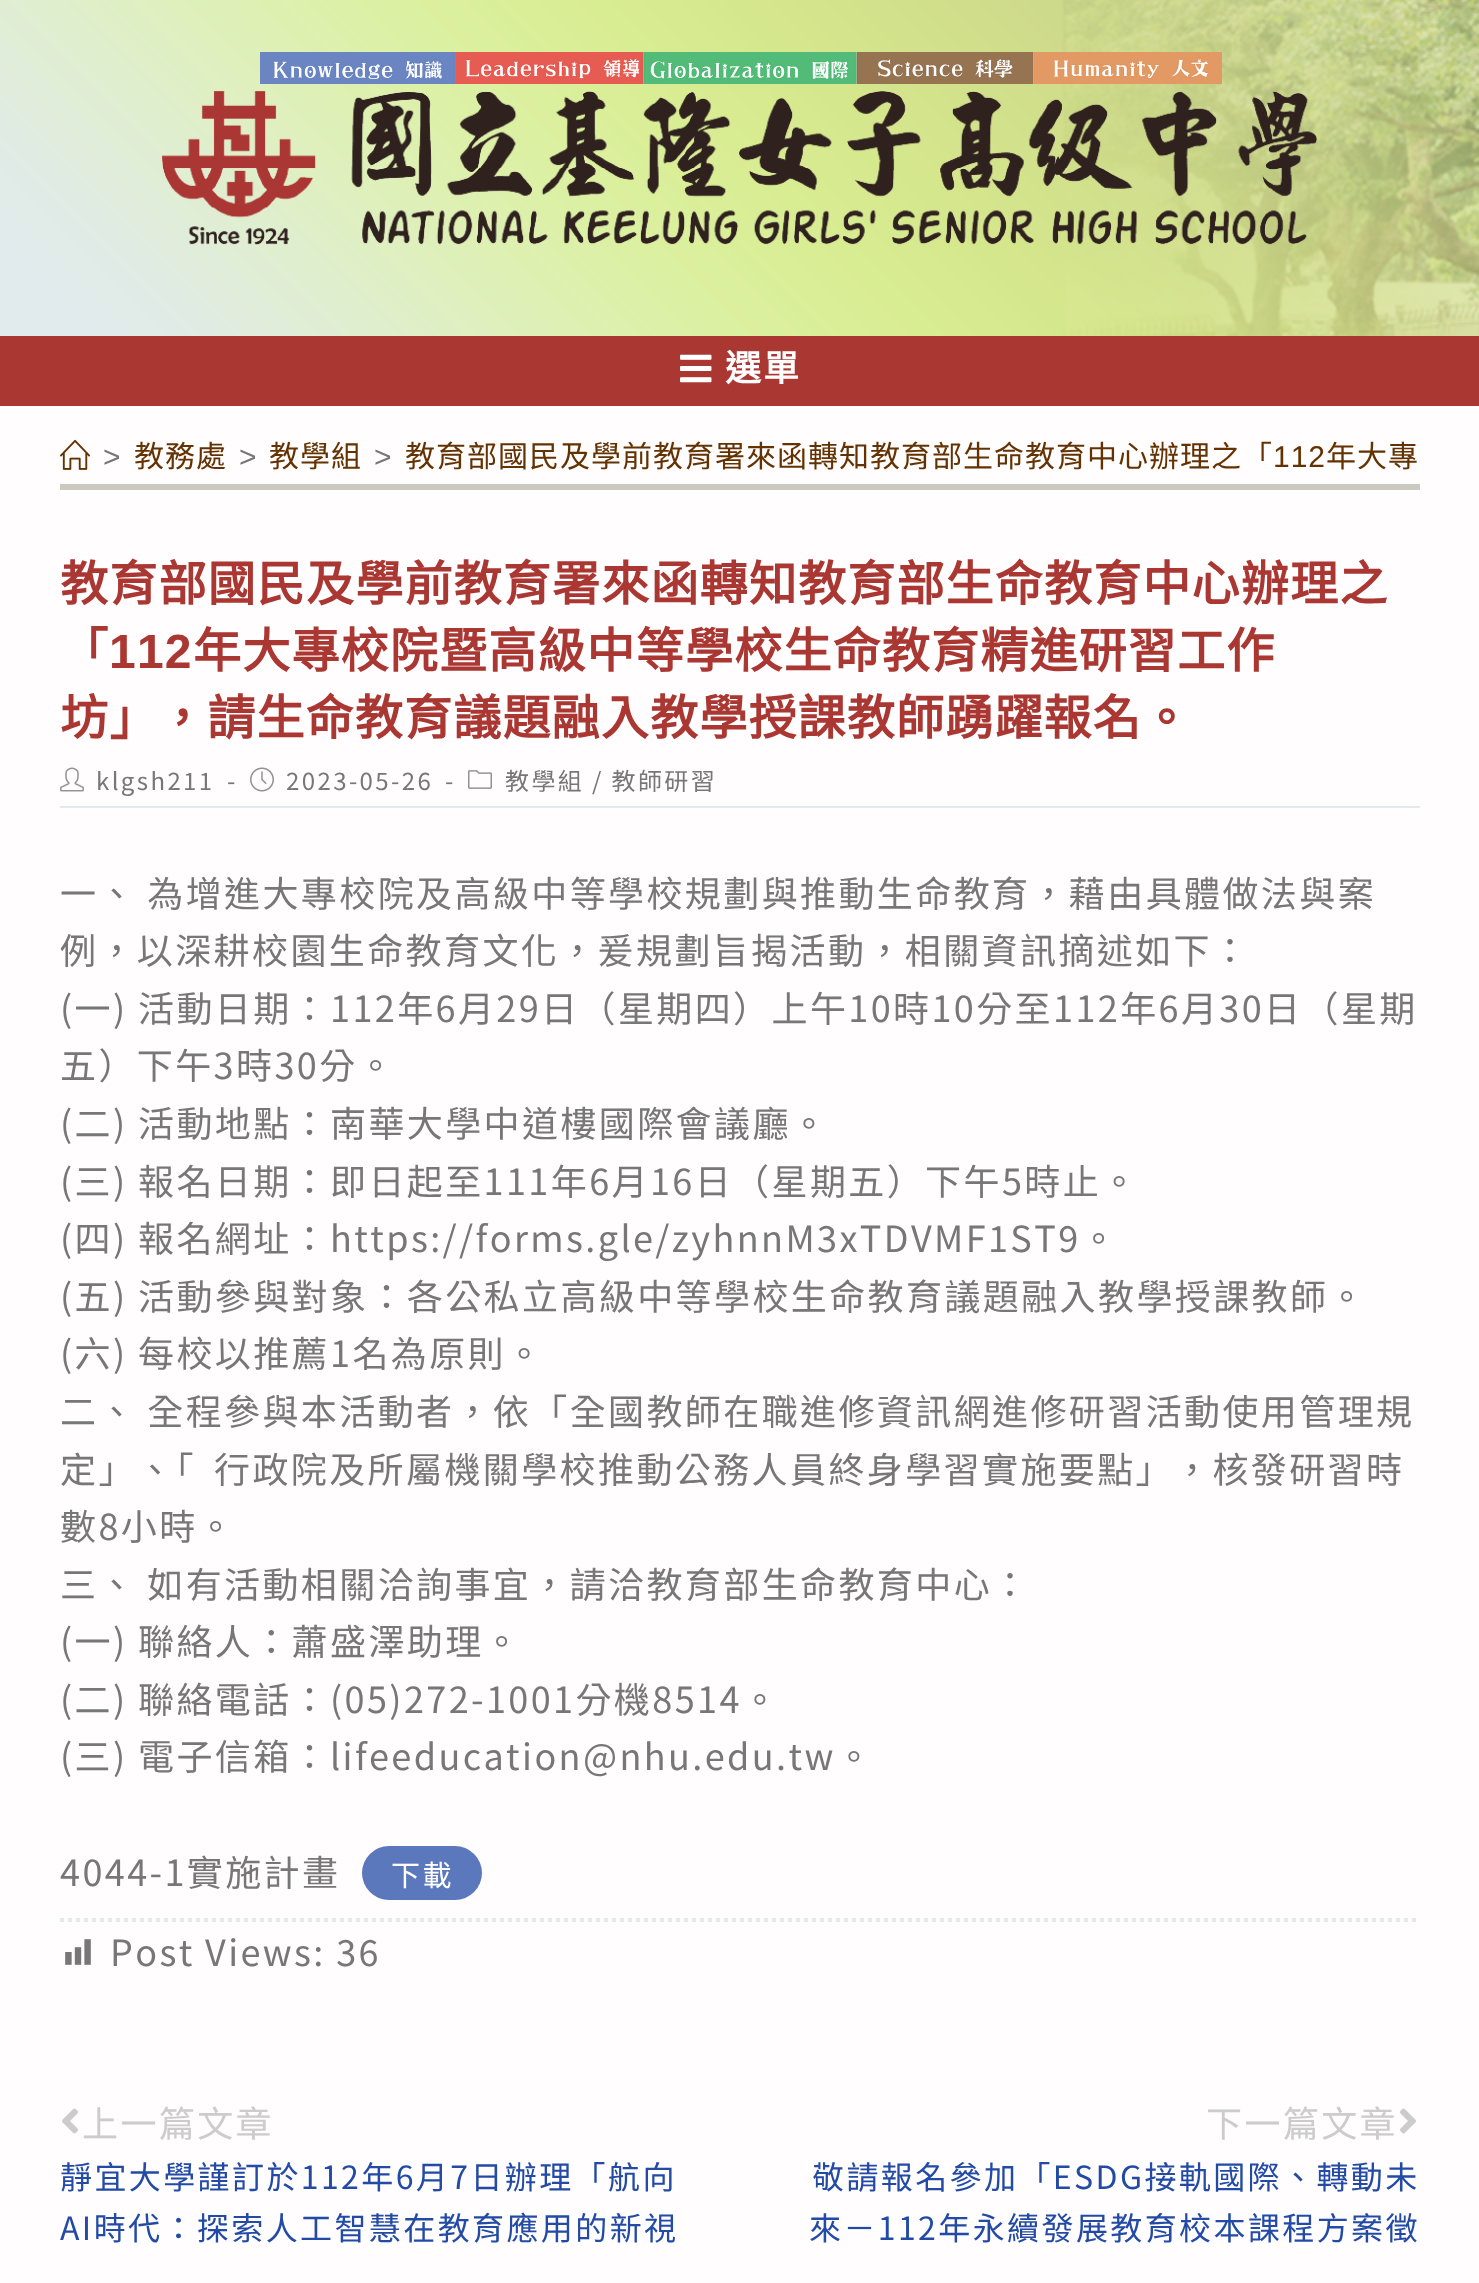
(async () => {
const canvas = document.querySelector("canvas")
canvas.width = 1479
canvas.height = 2283
const c = canvas.getContext("2d")
c.miterLimit = 4
c.fontKerning = "none"
function T(s,x,y){c.fillText(s,x,y)}
function R(x,y,w,h){c.fillRect(x,y,w,h)}
function Q(x,y,w,h,r){c.beginPath();c.roundRect(x,y,w,h,r);c.fill()}
async function I(src,x,y,w,h){const img=new Image();img.src=src;await img.decode();c.drawImage(img,x,y,w,h)}
let path
c.fillStyle="#fffdfe"
R(0,0,1479,2283)
await I("1.png",0,0,1479,336)
await I("2.png",260,52,962,32)
await I("3.png",162,91,1156,154)
c.fillStyle="#aa3732"
R(0,336,1479,70)
await I("4.png",680,354,32,29)
c.letterSpacing="2px"
c.font="bold 36px Noto Sans CJK TC"
c.fillStyle="#fff"
T("選單",725,381)
c.fillStyle="#cccabe"
R(60,484,1360,6)
await I("5.png",60,439,30,31)
c.letterSpacing="1px"
c.font="30px Liberation Sans"
c.fillStyle="#777"
T(">",103,467)
c.font="30px Noto Sans CJK TC"
c.fillStyle="#643200"
T("教務處",134,467)
c.font="30px Liberation Sans"
c.fillStyle="#777"
T(">",239,467)
c.font="30px Noto Sans CJK TC"
c.fillStyle="#643200"
T("教學組",269,467)
c.font="30px Liberation Sans"
c.fillStyle="#777"
T(">",374,467)
c.font="30px Noto Sans CJK TC"
c.fillStyle="#643200"
T("教育部國民及學前教育署來函轉知教育部生命教育中心辦理之「",405,467)
c.font="30px Liberation Sans"
T("112",1273,467)
c.font="30px Noto Sans CJK TC"
T("年大專",1326,467)
c.letterSpacing="1.2px"
c.font="bold 48px Noto Sans CJK TC"
c.fillStyle="#aa3732"
T("教育部國民及學前教育署來函轉知教育部生命教育中心辦理之",60,601)
T("「",60,668)
c.font="bold 48px Liberation Sans"
T("112",109,668)
c.font="bold 48px Noto Sans CJK TC"
T("年大專校院暨高級中等學校生命教育精進研習工作",193,668)
T("坊」",60,735)
T("，請生命教育議題融入教學授課教師踴躍報名。",158,735)
c.fillStyle="#e1ebed"
R(60,806,1360,2)
await I("6.png",60,767,24,25)
c.letterSpacing="2.4px"
c.font="24px Noto Sans TC"
c.fillStyle="#777"
T("klgsh211",96,790)
T("-",227,790)
await I("7.png",250,767,24,25)
T("2023-05-26",286,790)
T("-",445,790)
await I("8.png",468,770,24,19)
T("教學組 / 教師研習",505,790)
c.font="36px Noto Sans TC"
T("一、 為增進大專校院及高級中等學校規劃與推動生命教育，藉由具體做法與案",60,907)
T("例，以深耕校園生命教育文化，爰規劃旨揭活動，相關資訊摘述如下：",60,964)
T("(一) 活動日期：112年6月29日（星期四）上午10時10分至112年6月30日（星期",60,1022)
T("五）下午3時30分。",60,1079)
T("(二) 活動地點：南華大學中道樓國際會議廳。",60,1137)
T("(三) 報名日期：即日起至111年6月16日（星期五）下午5時止。",60,1195)
T("(四) 報名網址：https://forms.gle/zyhnnM3xTDVMF1ST9。",60,1252)
T("(五) 活動參與對象：各公私立高級中等學校生命教育議題融入教學授課教師。",60,1310)
T("(六) 每校以推薦1名為原則。",60,1367)
T("二、 全程參與本活動者，依「全國教師在職進修資訊網進修研習活動使用管理規",60,1425)
T("定」",60,1483)
T("、「",137,1483)
T("行政院及所屬機關學校推動公務人員終身學習實施要點」",214,1483)
T("，核發研習時",1174,1483)
T("數8小時。",60,1540)
T("三、 如有活動相關洽詢事宜，請洽教育部生命教育中心：",60,1598)
T("(一) 聯絡人：蕭盛澤助理。",60,1655)
T("(二) 聯絡電話：(05)272-1001分機8514。",60,1713)
T("(三) 電子信箱：lifeeducation@nhu.edu.tw。",60,1770)
path = new Path2D("M60 1920h1360")
c.strokeStyle="#e1ebed"
c.lineWidth=4
c.setLineDash([4,4])
c.stroke(path)
T("4044-1實施計畫",60,1886)
c.fillStyle="#5a78bb"
Q(362,1846,120,54,27)
c.font="29px Noto Sans TC"
c.fillStyle="#fff"
T("下載",391,1886)
await I("9.png",65,1939,26,26)
c.font="36px Noto Sans TC"
c.fillStyle="#777"
T("Post Views: 36",110,1966)
await I("10.png",62,2108,16,26)
c.fillStyle="#ccc"
T("上一篇文章",82,2137)
c.font="32px Noto Sans TC"
c.fillStyle="#234ba5"
T("靜宜大學謹訂於112年6月7日辦理「航向",60,2189)
T("AI時代：探索人工智慧在教育應用的新視",60,2240)
c.font="36px Noto Sans TC"
c.fillStyle="#ccc"
T("下一篇文章",1206,2137)
await I("11.png",1400,2108,16,26)
c.font="32px Noto Sans TC"
c.fillStyle="#234ba5"
T("敬請報名參加「ESDG接軌國際、轉動未",812,2189)
T("來－112年永續發展教育校本課程方案徵",809,2240)
})()
